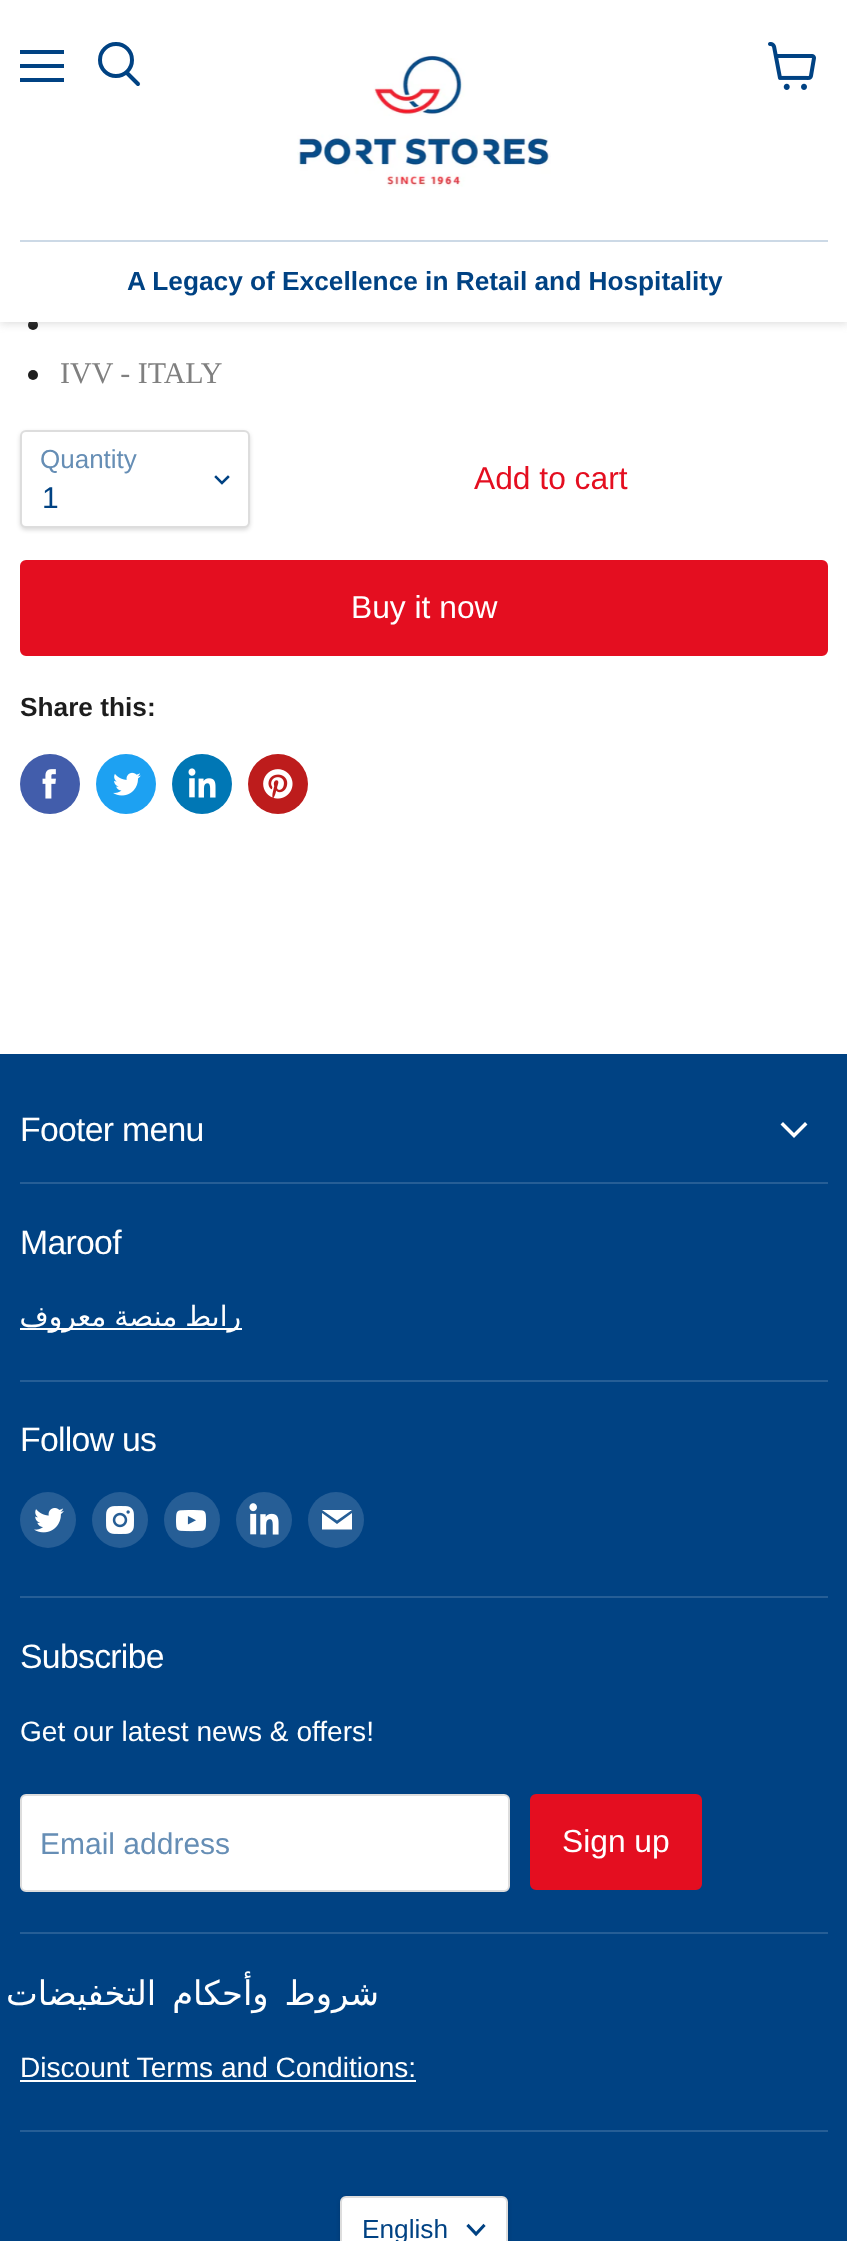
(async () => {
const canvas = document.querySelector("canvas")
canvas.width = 847
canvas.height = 2241
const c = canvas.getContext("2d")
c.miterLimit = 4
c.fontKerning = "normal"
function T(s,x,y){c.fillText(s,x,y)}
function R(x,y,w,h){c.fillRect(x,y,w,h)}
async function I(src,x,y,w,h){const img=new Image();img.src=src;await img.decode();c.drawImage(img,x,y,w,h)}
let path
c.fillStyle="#fff"
R(0,0,847,2241)
c.fillStyle="#1d1d1d"
c.beginPath()
c.arc(33,325,5,0,7)
c.fill()
c.fillStyle="#80808040"
c.filter="blur(4px)"
c.beginPath()
c.rect(0,2,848,322)
c.fill()
c.filter="none"
c.fillStyle="#fff"
R(0,0,847,322)
c.fillStyle="#004283"
R(20,50,44,4)
R(20,64,44,4)
R(20,78,44,4)
path = new Path2D("M138 84l-11-11")
c.strokeStyle="#004283"
c.lineWidth=4
c.lineCap="round"
c.stroke(path)
c.beginPath()
c.arc(116,60,16,0,7)
c.stroke()
await I("1.png",768,42,48,48)
await I("2.png",297,52,254,135)
c.fillStyle="#ccd9e6"
R(20,240,808,2)
c.font="bold 26.25px Liberation Sans"
c.fillStyle="#004283"
T("A Legacy of Excellence in Retail and Hospitality",127,290)
c.fillStyle="#1d1d1d"
c.beginPath()
c.arc(33,375,5,0,7)
c.fill()
c.font="30px Liberation Serif"
c.fillStyle="#808080"
T("IVV - ITALY",60,383)
c.fillStyle="#00000026"
c.filter="blur(2px)"
c.beginPath()
c.roundRect(20,432,230,98,6)
c.fill()
c.filter="none"
c.fillStyle="#fff"
c.beginPath()
c.roundRect(21,431,228,96,5)
c.fill()
c.strokeStyle="#ddd"
c.lineWidth=2
c.stroke()
c.font="26px Liberation Sans"
c.fillStyle="#668eb5"
T("Quantity",40,468)
path = new Path2D("M222 483l6-6m-6 6l-6-6")
c.strokeStyle="#004283"
c.lineWidth=2.5
c.lineCap="square"
c.stroke(path)
c.font="30px Liberation Sans"
c.fillStyle="#004283"
T("1",42,508)
c.font="31.75px Liberation Sans"
c.fillStyle="#e40e20"
T("Add to cart",474,489)
c.beginPath()
c.roundRect(21,561,806,94,5)
c.fill()
c.strokeStyle="#e40e20"
c.lineWidth=2
c.stroke()
c.fillStyle="#fff"
T("Buy it now",351,618)
c.font="bold 26.25px Liberation Sans"
c.fillStyle="#1d1d1d"
T("Share this:",20,716)
c.fillStyle="#425dab"
c.beginPath()
c.arc(50,784,30,0,7)
c.fill()
await I("3.png",42,769,14,30)
c.fillStyle="#1da1f2"
c.beginPath()
c.arc(126,784,30,0,7)
c.fill()
await I("4.png",113,772,28,24)
c.fillStyle="#0077b5"
c.beginPath()
c.arc(202,784,30,0,7)
c.fill()
await I("5.png",188,768,28,30)
c.fillStyle="#bd1c1c"
c.beginPath()
c.arc(278,784,30,0,7)
c.fill()
await I("6.png",263,769,30,30)
c.fillStyle="#004283"
R(0,1054,847,1187)
c.fillStyle="#265e96"
R(20,1182,808,2)
c.letterSpacing="-0.7px"
c.font="33.75px Liberation Sans"
c.fillStyle="#fff"
T("Footer menu",20,1141)
path = new Path2D("M794 1135.5l11-11m-11 11l-11-11")
c.strokeStyle="#fff"
c.lineWidth=3.5
c.stroke(path)
c.fillStyle="#265e96"
R(20,1380,808,2)
c.fillStyle="#fff"
T("Maroof",20,1254)
R(20,1328,222,2)
c.letterSpacing="0px"
c.wordSpacing="-1px"
c.direction="rtl"
c.font="28.1px DejaVu Sans"
T("رابط منصة معروف",241,1326)
c.fillStyle="#265e96"
R(20,1596,808,2)
c.letterSpacing="-0.7px"
c.wordSpacing="0px"
c.direction="ltr"
c.font="33.75px Liberation Sans"
c.fillStyle="#fff"
T("Follow us",20,1451)
c.fillStyle="#265e96"
c.beginPath()
c.arc(48,1520,28,0,7)
c.fill()
await I("7.png",34,1508,30,25)
c.beginPath()
c.arc(120,1520,28,0,7)
c.fill()
await I("8.png",106,1506,28,28)
c.beginPath()
c.arc(192,1520,28,0,7)
c.fill()
await I("9.png",176,1510,31,22)
c.beginPath()
c.arc(264,1520,28,0,7)
c.fill()
await I("10.png",249,1503,30,32)
c.beginPath()
c.arc(336,1520,28,0,7)
c.fill()
c.fillStyle="#fff"
path = new Path2D("M352 1510h-30l15 10.5zm-15 14l-15-11v16.5h30v-16.5z")
c.fill(path,"evenodd")
c.fillStyle="#265e96"
R(20,1932,808,2)
c.fillStyle="#fff"
T("Subscribe",20,1668)
c.letterSpacing="0px"
c.font="28.1px Liberation Sans"
T("Get our latest news & offers!",20,1741)
c.beginPath()
c.roundRect(21,1795,488,96,5)
c.fill()
c.strokeStyle="#ddd"
c.lineWidth=2
c.stroke()
c.font="30px Liberation Sans"
c.fillStyle="#668eb5"
T("Email address",40,1854)
c.fillStyle="#e40e20"
c.beginPath()
c.roundRect(531,1795,170,94,5)
c.fill()
c.strokeStyle="#e40e20"
c.stroke()
c.font="31.75px Liberation Sans"
c.fillStyle="#fff"
T("Sign up",562,1852)
c.fillStyle="#265e96"
R(20,2130,808,2)
c.letterSpacing="-0.7px"
c.wordSpacing="6px"
c.direction="rtl"
c.font="33.75px DejaVu Sans"
c.fillStyle="#fff"
T("شروط وأحكام التخفيضات",379,2005)
c.letterSpacing="0px"
c.wordSpacing="0px"
c.direction="ltr"
c.font="28.1px Liberation Sans"
T("Discount Terms and Conditions:",20,2077)
R(20,2080,396,2)
c.fillStyle="#00000026"
c.filter="blur(2px)"
c.beginPath()
c.roundRect(340,2198,168,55,6)
c.fill()
c.filter="none"
c.fillStyle="#fff"
c.beginPath()
c.roundRect(341,2197,166,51,5)
c.fill()
c.strokeStyle="#ddd"
c.stroke()
c.font="26.25px Liberation Sans"
c.fillStyle="#004283"
T("English",362,2238)
path = new Path2D("M476 2234l7.5-8m-7.5 8l-7.5-8")
c.strokeStyle="#004283"
c.lineWidth=3.1
c.stroke(path)
})()
